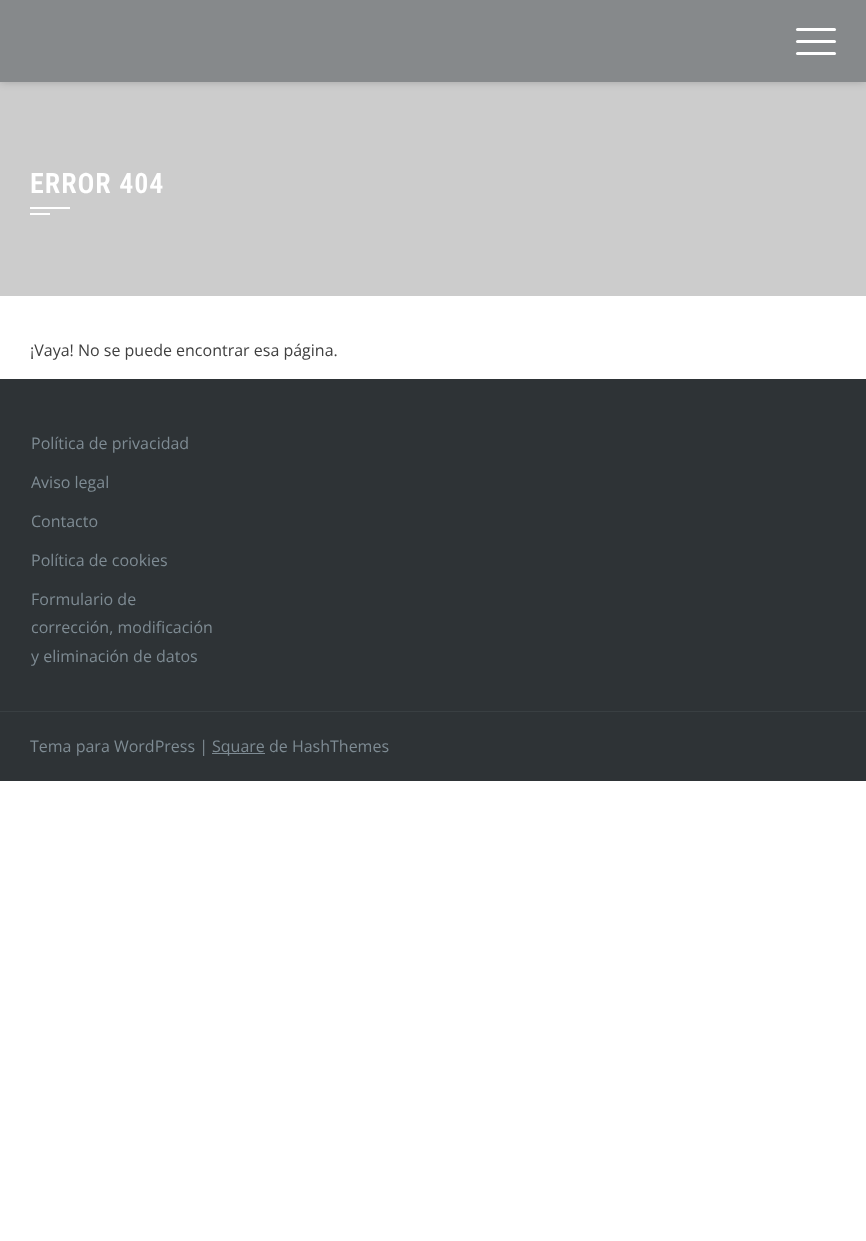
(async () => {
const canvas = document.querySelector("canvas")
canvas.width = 866
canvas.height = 1241
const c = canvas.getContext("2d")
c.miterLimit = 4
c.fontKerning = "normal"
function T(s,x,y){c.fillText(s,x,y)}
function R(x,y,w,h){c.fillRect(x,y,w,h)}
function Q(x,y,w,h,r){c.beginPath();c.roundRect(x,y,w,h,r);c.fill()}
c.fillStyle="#fff"
R(0,0,866,1241)
c.fillStyle="#ccc"
R(0,82,866,214)
c.fillStyle="#00000033"
c.filter="blur(4px)"
c.beginPath()
c.rect(0,0,866,82)
c.fill()
c.filter="none"
c.fillStyle="#86898b"
R(0,0,866,82)
c.fillStyle="#fff"
Q(796,40,40,3,1.5)
Q(796,28,40,3,1.5)
Q(796,52,40,3,1.5)
c.letterSpacing="1px"
c.font="600 28px Roboto Condensed"
T("ERROR 404",30,193)
R(30,207,40,2)
R(30,213,20,2)
c.letterSpacing="0px"
c.font="16px Open Sans"
c.fillStyle="#404040"
T("¡Vaya! No se puede encontrar esa página.",30,356)
c.fillStyle="#2e3336"
R(0,379,866,402)
c.fillStyle="#393f42"
R(0,711,866,1)
c.fillStyle="#7e8b93"
T("Política de privacidad",31,449)
T("Aviso legal",31,488)
T("Contacto",31,527)
T("Política de cookies",31,566)
T("Formulario de",31,605)
T("corrección, modificación",31,633)
T("y eliminación de datos",31,662)
T("Tema para WordPress |",30,752)
R(212,753,53,1)
T("Square de HashThemes",212,752)
})()
